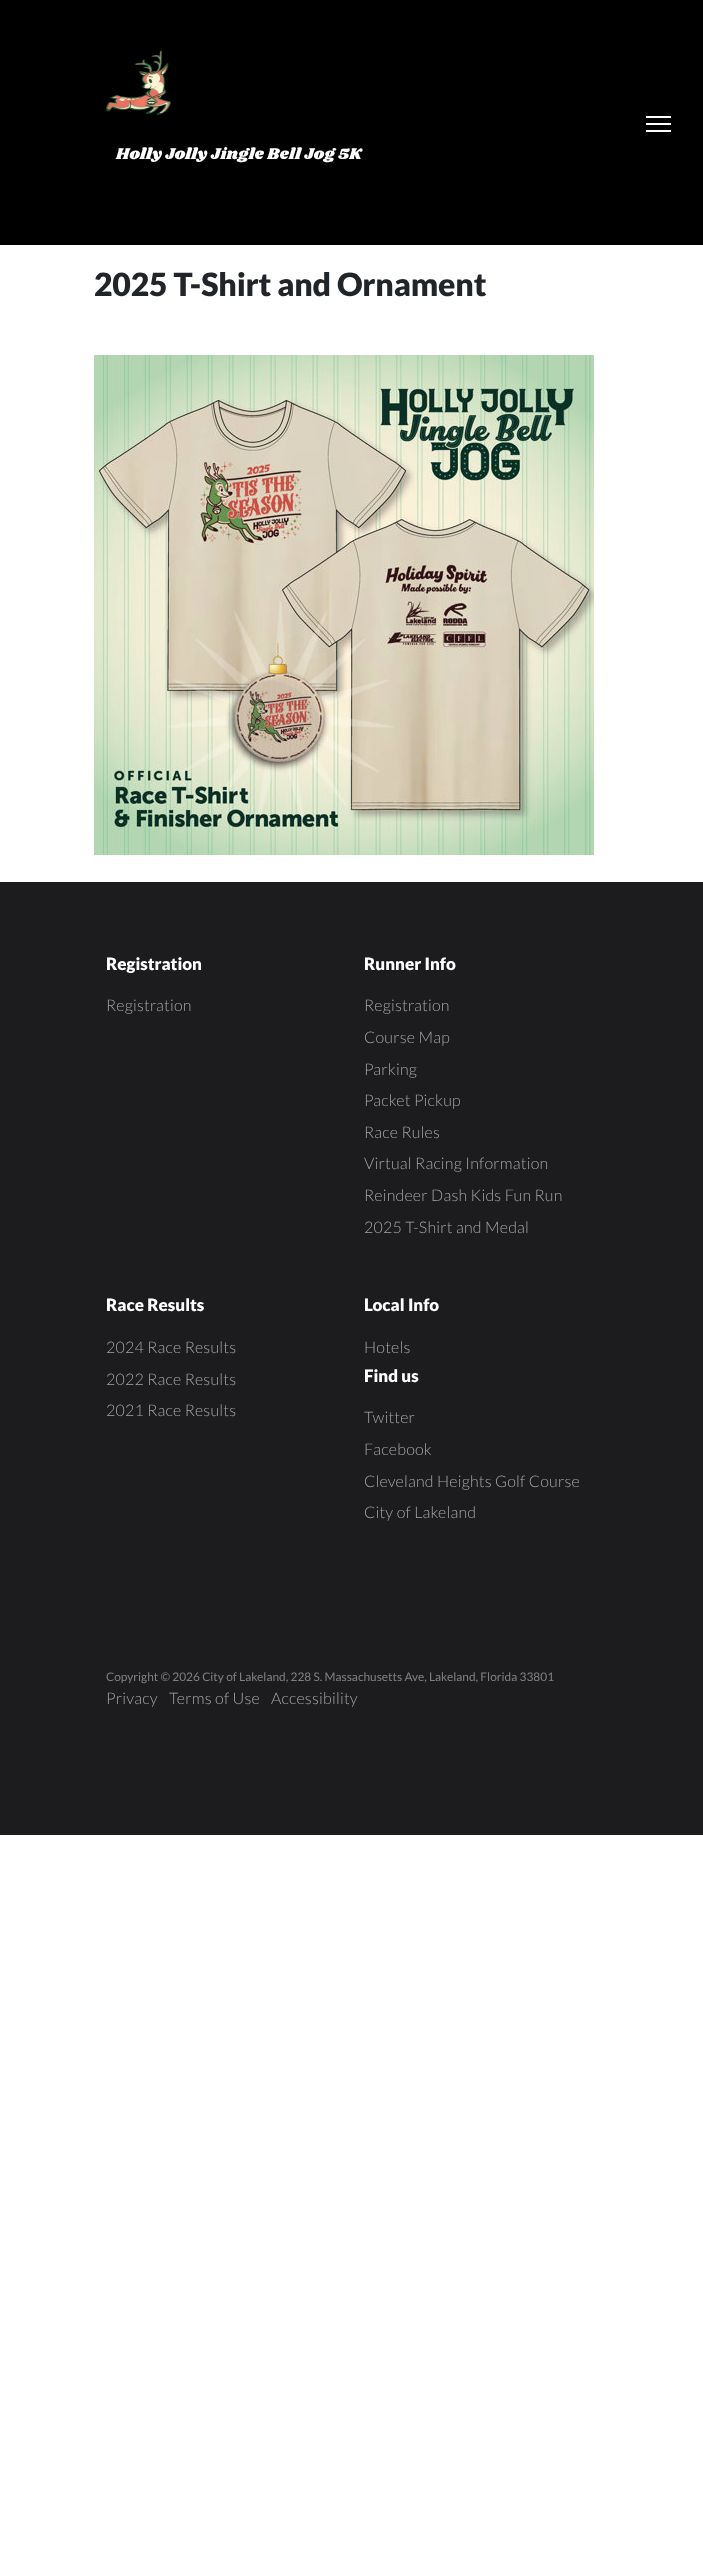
(async () => {
const canvas = document.querySelector("canvas")
canvas.width = 703
canvas.height = 2569
const c = canvas.getContext("2d")
c.miterLimit = 4
c.fontKerning = "normal"
function T(s,x,y){c.fillText(s,x,y)}
function R(x,y,w,h){c.fillRect(x,y,w,h)}
async function I(src,x,y,w,h){const img=new Image();img.src=src;await img.decode();c.drawImage(img,x,y,w,h)}
c.fillStyle="#fff"
R(0,0,703,2569)
c.fillStyle="#000"
R(0,0,703,245)
c.fillStyle="#fff"
R(646,123,25,2)
R(646,116,25,2)
R(646,130,25,2)
await I("1.png",106,50,65,65)
c.letterSpacing="0.2px"
c.font="16px Shrikhand"
T("Holly Jolly Jingle Bell Jog 5K",116,159)
c.letterSpacing="-0.2px"
c.font="900 32px Lato"
c.fillStyle="#212529"
T("2025 T-Shirt and Ornament",94,296)
await I("2.png",94,355,500,500)
c.fillStyle="#1c1c1e"
R(0,882,703,953)
c.letterSpacing="0px"
c.font="900 17px Lato"
c.fillStyle="#fff"
T("Registration",106,970)
c.letterSpacing="0.2px"
c.font="300 16px Lato"
c.fillStyle="#a4a4a5"
T("Registration",106,1011)
c.letterSpacing="0px"
c.font="900 17px Lato"
c.fillStyle="#fff"
T("Runner Info",364,970)
c.letterSpacing="0.2px"
c.font="300 16px Lato"
c.fillStyle="#a4a4a5"
T("Registration",364,1011)
T("Course Map",364,1043)
T("Parking",364,1075)
T("Packet Pickup",364,1106)
T("Race Rules",364,1138)
T("Virtual Racing Information",364,1169)
T("Reindeer Dash Kids Fun Run",364,1201)
T("2025 T-Shirt and Medal",364,1233)
c.letterSpacing="0px"
c.font="900 17px Lato"
c.fillStyle="#fff"
T("Race Results",106,1311)
c.letterSpacing="0.2px"
c.font="300 16px Lato"
c.fillStyle="#a4a4a5"
T("2024 Race Results",106,1353)
T("2022 Race Results",106,1385)
T("2021 Race Results",106,1416)
c.letterSpacing="0px"
c.font="900 17px Lato"
c.fillStyle="#fff"
T("Local Info",364,1311)
c.letterSpacing="0.2px"
c.font="300 16px Lato"
c.fillStyle="#a4a4a5"
T("Hotels",364,1353)
c.letterSpacing="0px"
c.font="900 17px Lato"
c.fillStyle="#fff"
T("Find us",364,1382)
c.letterSpacing="0.2px"
c.font="300 16px Lato"
c.fillStyle="#a4a4a5"
T("Twitter",364,1423)
T("Facebook",364,1455)
T("Cleveland Heights Golf Course",364,1487)
T("City of Lakeland",364,1518)
c.letterSpacing="0px"
c.font="11.9px Lato"
c.fillStyle="#808080"
T("Copyright © 2026 City of Lakeland, 228 S. Massachusetts Ave, Lakeland, Florida 33801",106,1681)
c.letterSpacing="0.2px"
c.font="300 16px Lato"
c.fillStyle="#a4a4a5"
T("Privacy",106,1704)
T("Terms of Use",169,1704)
T("Accessibility",271,1704)
})()
